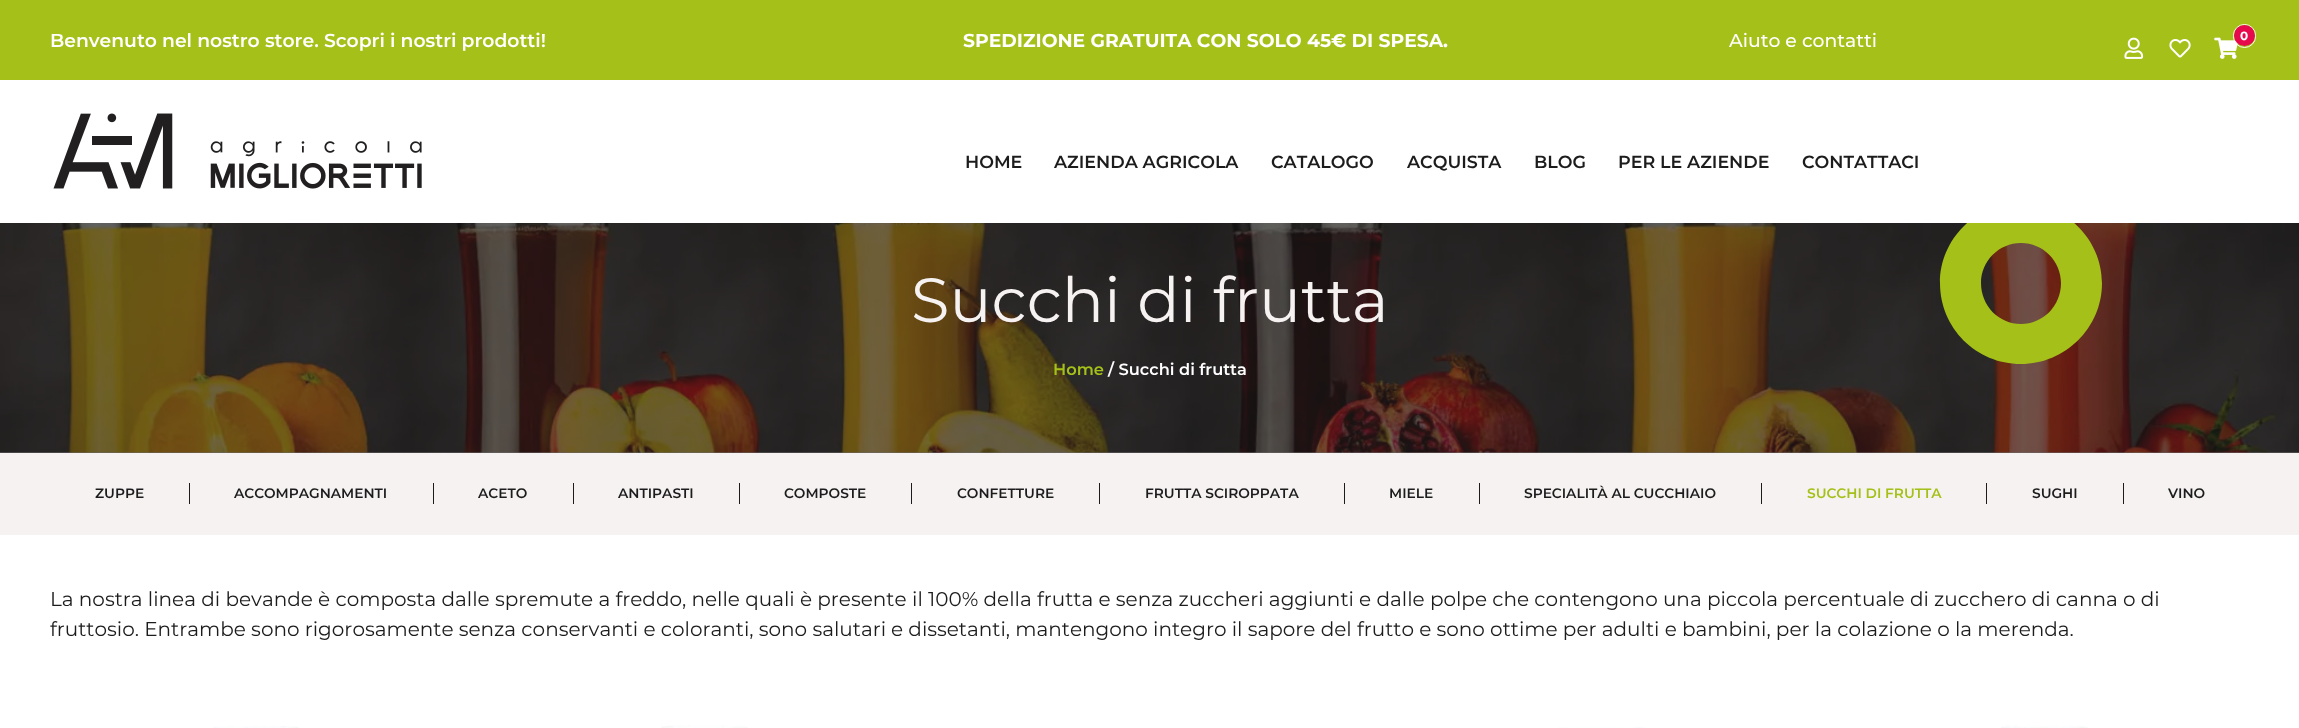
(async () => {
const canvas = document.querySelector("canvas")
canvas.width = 2299
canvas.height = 728
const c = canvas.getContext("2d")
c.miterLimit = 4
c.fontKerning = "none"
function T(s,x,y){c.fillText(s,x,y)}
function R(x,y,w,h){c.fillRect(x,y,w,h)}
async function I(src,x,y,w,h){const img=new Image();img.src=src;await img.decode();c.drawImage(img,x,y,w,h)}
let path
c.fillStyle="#fff"
R(0,0,2299,728)
c.fillStyle="#a5c018"
R(0,0,2299,80)
c.font="600 18.75px Montserrat"
c.fillStyle="#fff"
T("Benvenuto nel nostro store. Scopri i nostri prodotti!",50,47)
c.font="bold 18.75px Montserrat"
T("SPEDIZIONE GRATUITA CON SOLO 45€ DI SPESA.",963,47)
c.font="500 18.75px Montserrat"
T("Aiuto e contatti",1729,47)
await I("3.png",2214,37,24,22)
c.beginPath()
c.roundRect(2233.5,24.5,22,23,11)
c.strokeStyle="#fff"
c.stroke()
c.fillStyle="#e60a4c"
c.beginPath()
c.arc(2244.5,35.5,10.5,0,7)
c.fill()
c.font="bold 12px Montserrat"
c.fillStyle="#fff"
T("0",2240,40)
await I("1.png",2124,37,20,22)
await I("2.png",2169,39,22,19)
c.fillStyle="#6c6b6b"
R(0,452,2299,1)
await I("5.png",0,223,2299,230)
c.fillStyle="#a5c018"
path = new Path2D("M2021 243c-22 0-40 18-40 40c0 23 18 41 40 41c22 0 40-18 40-41c0-22-18-40-40-40m0 121c-45 0-81-36-81-81c0-44 36-80 81-80c44 0 81 36 81 80c0 45-37 81-81 81")
c.fill(path)
c.fillStyle="#fff"
R(1967,203,108,20)
await I("4.png",53,113,369,76)
c.font="600 17.5px Montserrat"
c.fillStyle="#1c1c1d"
T("HOME",965,168)
T("AZIENDA AGRICOLA",1054,168)
T("CATALOGO",1271,168)
T("ACQUISTA",1407,168)
T("BLOG",1534,168)
T("PER LE AZIENDE",1618,168)
T("CONTATTACI",1802,168)
c.font="62.5px Montserrat"
c.fillStyle="#f5f2f1"
T("Succhi di frutta",911,322)
c.font="600 16.25px Montserrat"
c.fillStyle="#a5c018"
T("Home",1053,375)
c.fillStyle="#fff"
T("/ Succhi di frutta",1108,375)
c.fillStyle="#f5f2f1"
R(0,453,2299,82)
c.font="600 13.75px Montserrat"
c.fillStyle="#1c1c1d"
T("ZUPPE",95,498)
R(189,483,1,21)
T("ACCOMPAGNAMENTI",234,498)
R(433,483,1,21)
T("ACETO",478,498)
R(573,483,1,21)
T("ANTIPASTI",618,498)
R(739,483,1,21)
T("COMPOSTE",784,498)
R(911,483,1,21)
T("CONFETTURE",957,498)
R(1099,483,1,21)
T("FRUTTA SCIROPPATA",1145,498)
R(1344,483,1,21)
T("MIELE",1389,498)
R(1479,483,1,21)
T("SPECIALITÀ AL CUCCHIAIO",1524,498)
R(1761,483,1,21)
c.fillStyle="#a5c018"
T("SUCCHI DI FRUTTA",1807,498)
c.fillStyle="#1c1c1d"
R(1986,483,1,21)
T("SUGHI",2032,498)
R(2123,483,1,21)
T("VINO",2168,498)
c.font="20px Montserrat"
T("La nostra linea di bevande è composta dalle spremute a freddo, nelle quali è presente",50,606)
T("il 100% della frutta e senza zuccheri aggiunti e dalle polpe che contengono una piccola percentuale di zucchero di canna o di",912,606)
T("fruttosio. Entrambe sono rigorosamente senza conservanti e coloranti, sono salutari",50,636)
T("e dissetanti, mantengono integro il sapore del frutto e sono ottime per adulti e bambini, per la colazione o la merenda.",891,636)
await I("6.png",213,726,86,2)
await I("7.png",661,725,87,3)
await I("8.png",1559,727,85,1)
await I("9.png",2001,725,87,3)
})()
